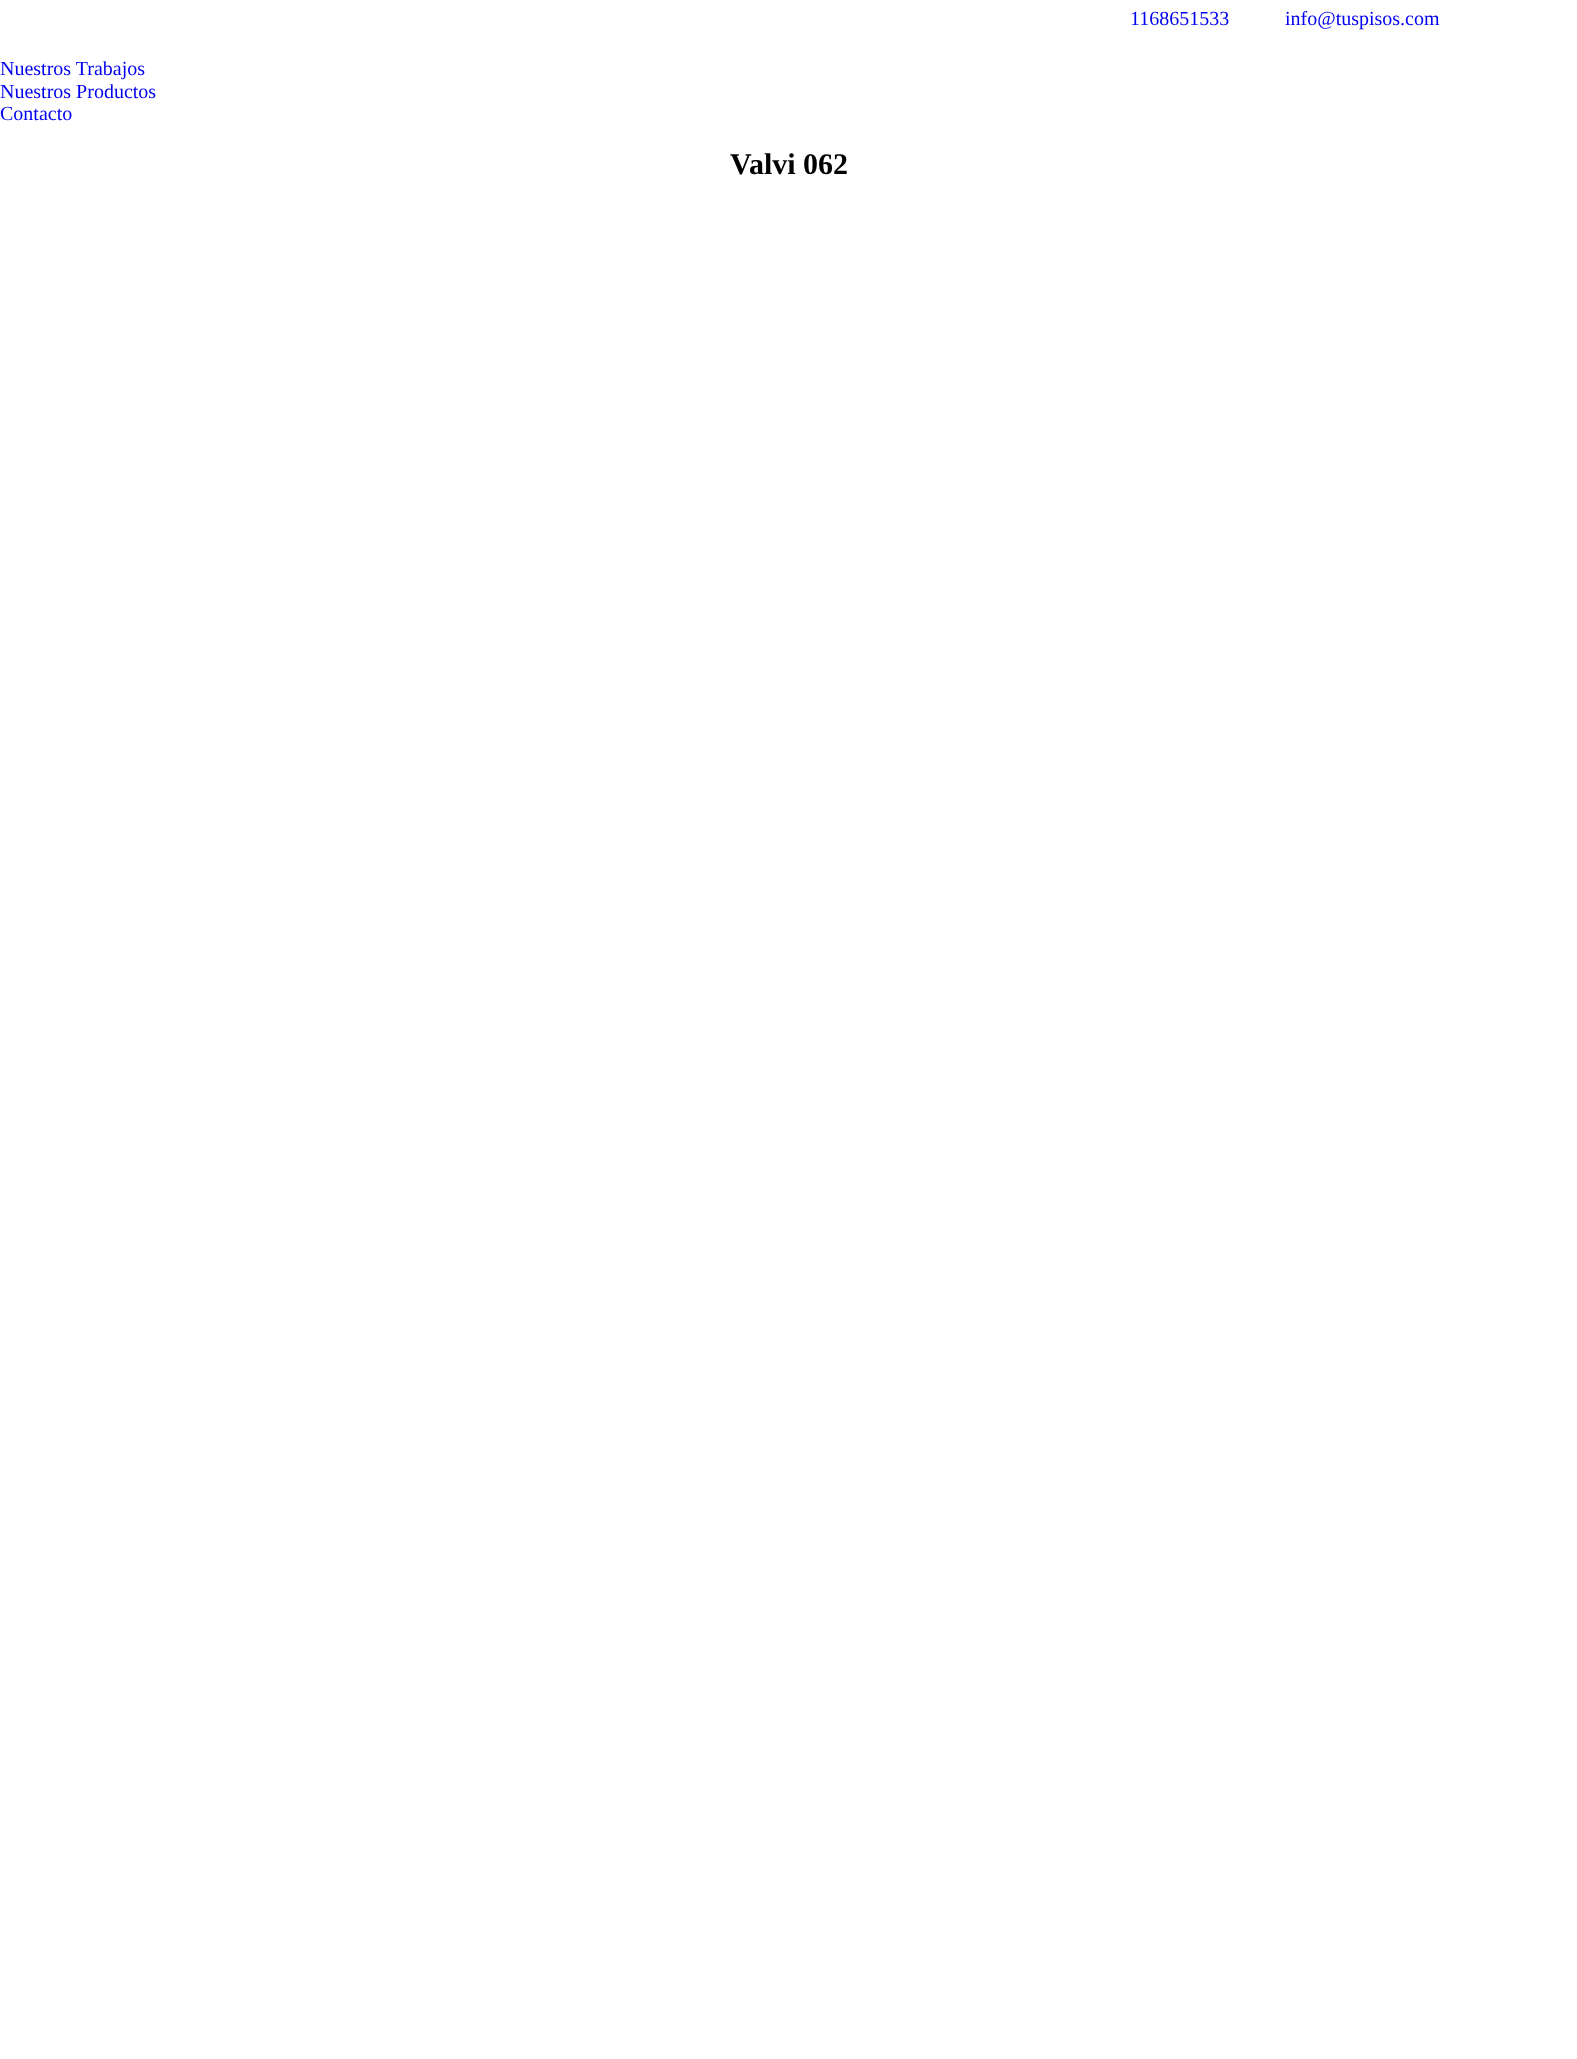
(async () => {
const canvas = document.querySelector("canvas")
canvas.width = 1577
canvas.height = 2059
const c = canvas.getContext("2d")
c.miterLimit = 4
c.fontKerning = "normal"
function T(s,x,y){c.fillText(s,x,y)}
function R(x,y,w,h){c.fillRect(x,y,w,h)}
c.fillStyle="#fff"
R(0,0,1577,2059)
c.font="20px Liberation Serif"
c.fillStyle="#00e"
T("1168651533",1130,25)
T("info@tuspisos.com",1285,25)
T("Nuestros Trabajos",0,75)
T("Nuestros Productos",0,98)
T("Contacto",0,120)
c.font="bold 30px Liberation Serif"
c.fillStyle="#000"
T("Valvi 062",730,174)
})()
